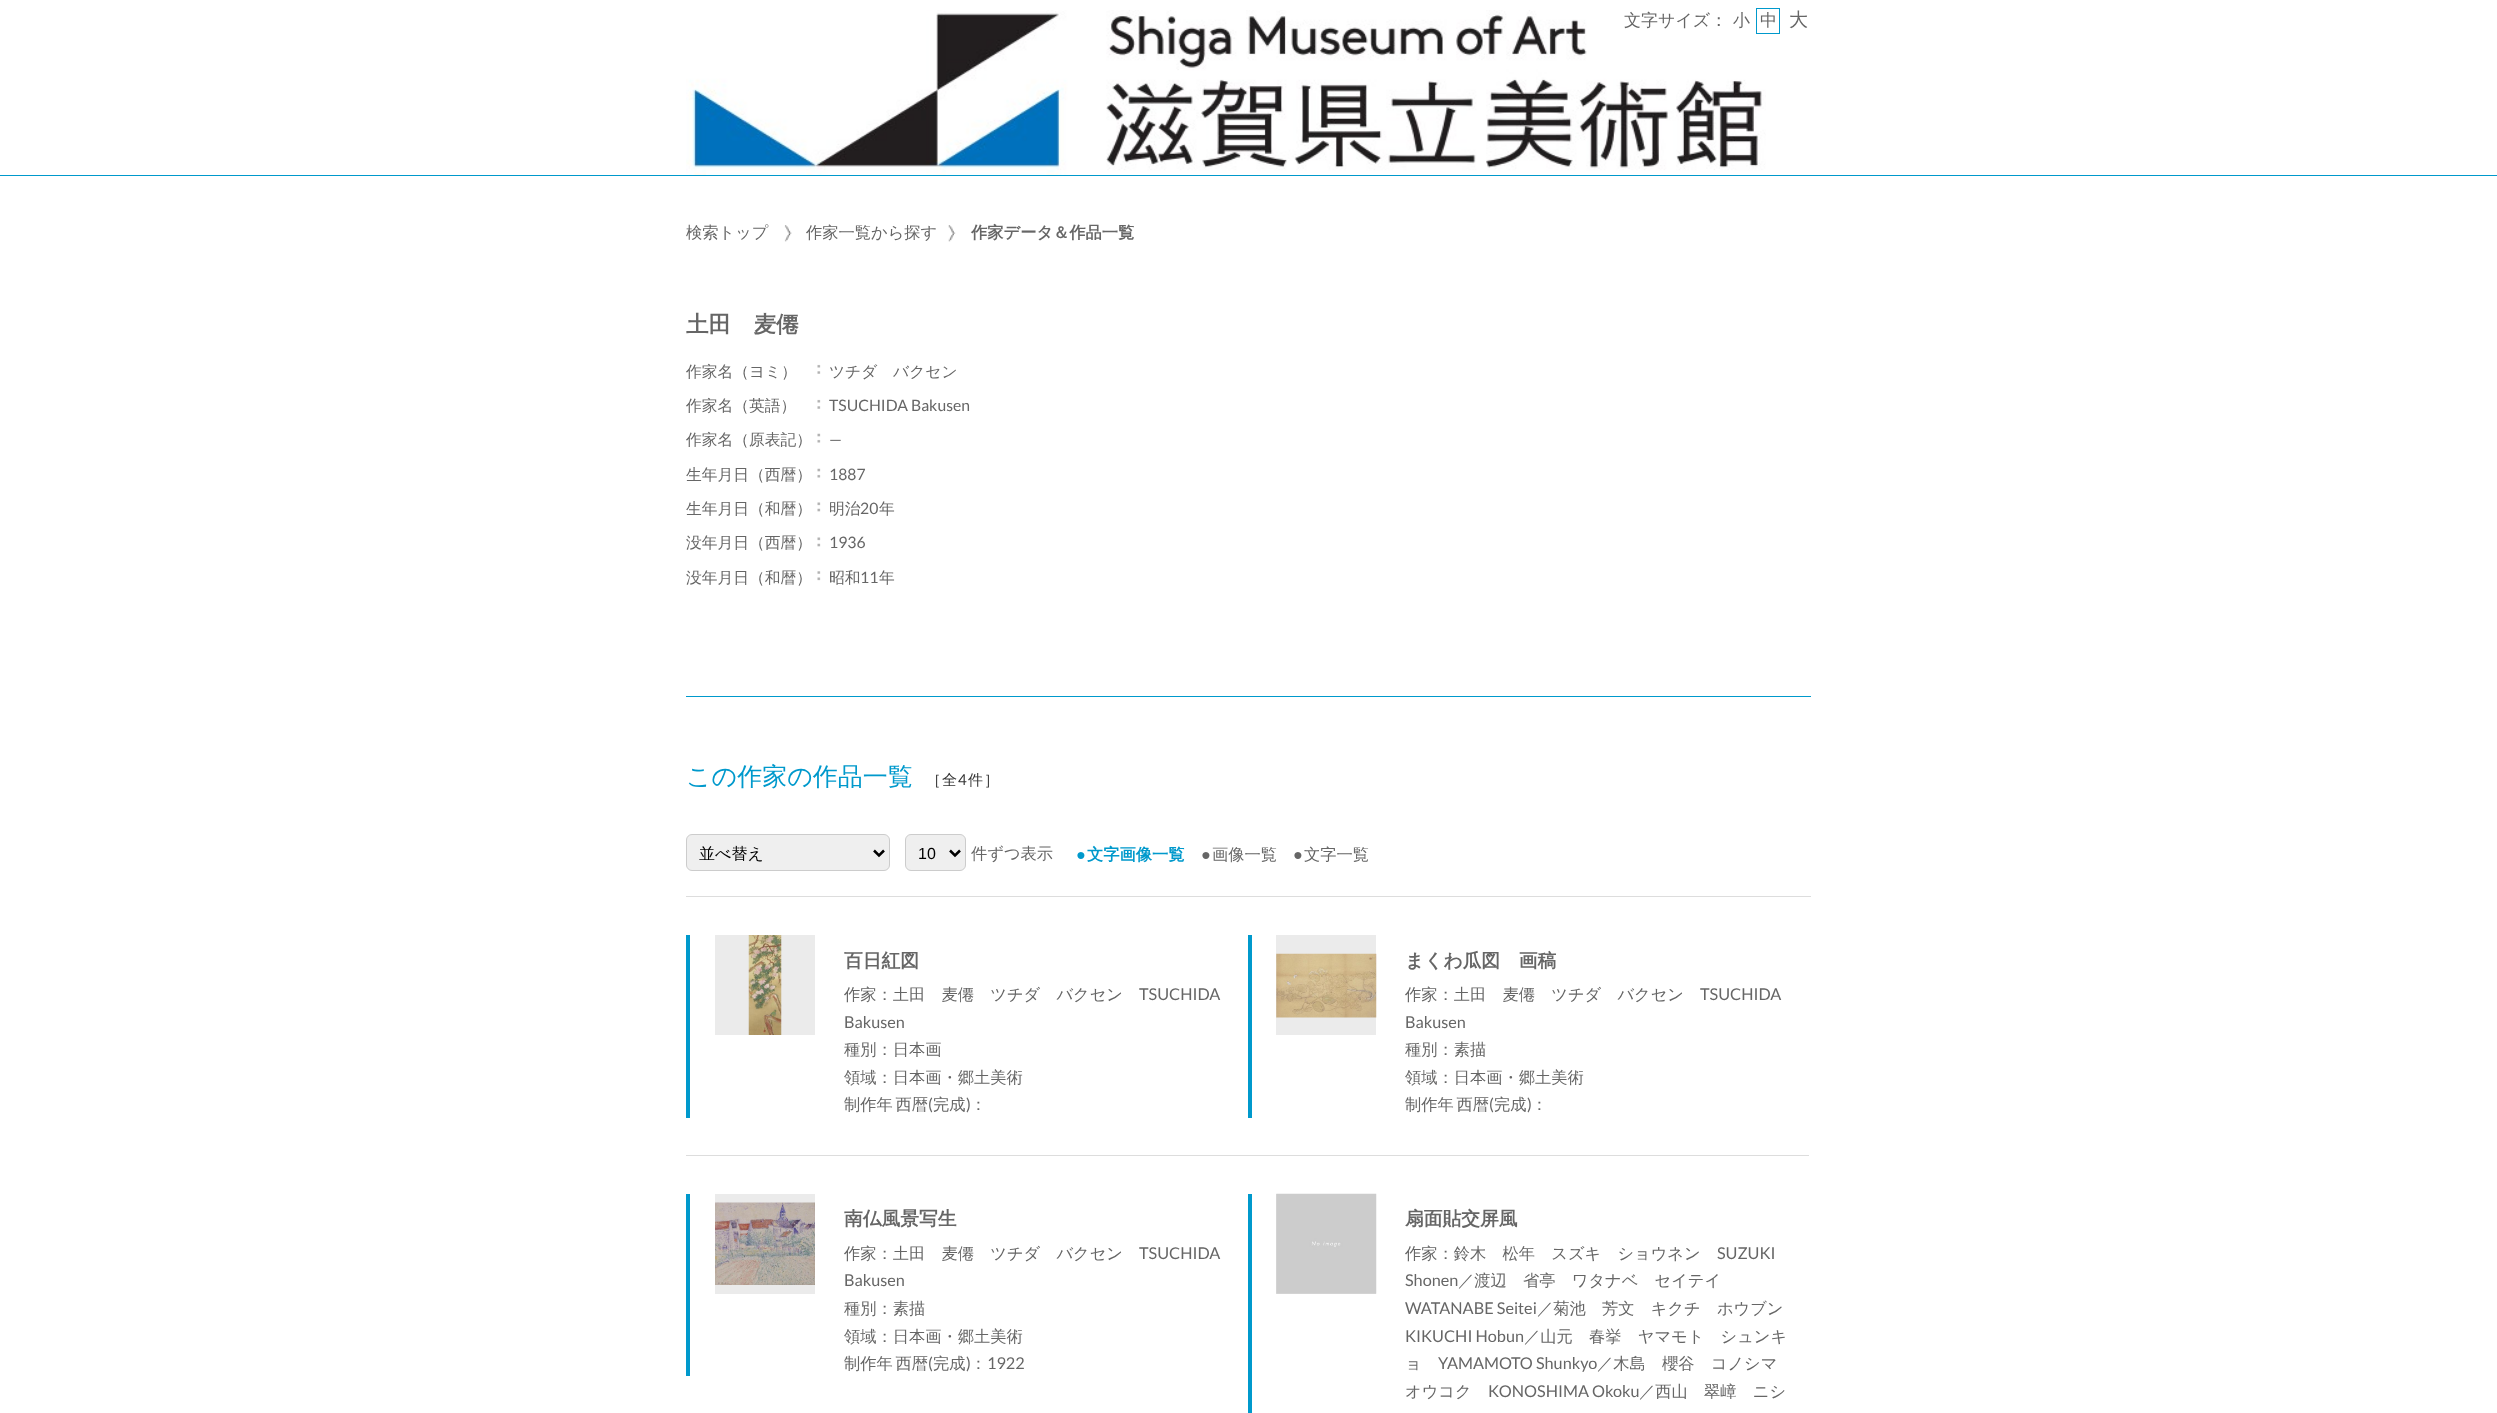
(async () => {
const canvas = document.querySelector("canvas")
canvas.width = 2497
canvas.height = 1413
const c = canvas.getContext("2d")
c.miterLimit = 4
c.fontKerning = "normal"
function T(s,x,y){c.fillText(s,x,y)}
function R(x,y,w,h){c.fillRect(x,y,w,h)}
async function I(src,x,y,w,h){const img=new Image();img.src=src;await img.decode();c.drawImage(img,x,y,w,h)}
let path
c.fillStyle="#fff"
R(0,0,2497,1413)
await I("1.png",686,10,1080,165)
c.font="500 17px WenQuanYi Zen Hei"
c.fillStyle="#666"
T("文字サイズ：",1624,26)
T("小",1733,26)
c.strokeStyle="#09c"
c.strokeRect(1756.5,8.5,23,25)
T("中",1760,26)
c.font="500 19px WenQuanYi Zen Hei"
T("大",1789,26)
c.fillStyle="#09c"
R(0,175,2497,1)
c.font="500 16.25px WenQuanYi Zen Hei"
c.fillStyle="#666"
T("検索トップ",686,238)
await I("2.png",784,225,8,17)
T("作家一覧から探す",806,238)
await I("3.png",948,225,8,17)
c.font="bold 16.25px WenQuanYi Zen Hei"
T("作家データ＆作品一覧",971,238)
c.font="bold 22.5px WenQuanYi Zen Hei"
T("土田　麦僊",686,332)
c.font="500 15.75px WenQuanYi Zen Hei"
T("作家名（ヨミ）",686,377)
await I("4.png",817,364,4,10)
T("ツチダ　バクセン",829,377)
T("作家名（英語）",686,411)
await I("4.png",817,399,4,10)
c.font="15.75px Lato"
T("TSUCHIDA Bakusen",829,411)
c.font="500 15.75px WenQuanYi Zen Hei"
T("作家名（原表記）",686,445)
await I("5.png",817,433,4,10)
c.font="15.75px Lato"
T("—",829,445)
c.font="500 15.75px WenQuanYi Zen Hei"
T("生年月日（西暦）",686,480)
await I("5.png",817,468,4,10)
c.font="15.75px Lato"
T("1887",829,480)
c.font="500 15.75px WenQuanYi Zen Hei"
T("生年月日（和暦）",686,514)
await I("6.png",817,502,4,10)
T("明治",829,514)
c.font="15.75px Lato"
T("20",860,514)
c.font="500 15.75px WenQuanYi Zen Hei"
T("年",879,514)
T("没年月日（西暦）",686,548)
await I("6.png",817,537,4,10)
c.font="15.75px Lato"
T("1936",829,548)
c.font="500 15.75px WenQuanYi Zen Hei"
T("没年月日（和暦）",686,583)
await I("7.png",817,571,4,10)
T("昭和",829,583)
c.font="15.75px Lato"
T("11",860,583)
c.font="500 15.75px WenQuanYi Zen Hei"
T("年",879,583)
c.fillStyle="#09c"
R(686,696,1125,1)
c.font="500 25px WenQuanYi Zen Hei"
T("この作家の作品一覧",686,785)
c.letterSpacing="1px"
c.font="500 15px WenQuanYi Zen Hei"
c.fillStyle="#333"
T("［全",926,785)
c.font="15px Lato"
T("4",958,785)
c.font="500 15px WenQuanYi Zen Hei"
T("件］",968,785)
c.fillStyle="#efefef"
c.beginPath()
c.roundRect(686.5,834.5,203,36,5.5)
c.fill()
c.strokeStyle="#ccc"
c.stroke()
path = new Path2D("M874 850.5l5 5l5-5")
c.strokeStyle="#000"
c.lineWidth=2.5
c.stroke(path)
c.letterSpacing="0px"
c.font="500 16px WenQuanYi Zen Hei"
c.fillStyle="#000"
T("並べ替え",699,859)
c.fillStyle="#efefef"
c.beginPath()
c.roundRect(905.5,834.5,60,36,5.5)
c.fill()
c.strokeStyle="#ccc"
c.lineWidth=1
c.stroke()
path = new Path2D("M950 850.5l5 5l5-5")
c.strokeStyle="#000"
c.lineWidth=2.5
c.stroke(path)
c.font="16px Liberation Sans"
c.fillStyle="#000"
T("10",918,859)
c.font="500 16.25px WenQuanYi Zen Hei"
c.fillStyle="#666"
T("件ずつ表示",971,859)
c.font="bold 16.25px Liberation Sans"
c.fillStyle="#09c"
T("●",1076,860)
c.font="bold 16.25px WenQuanYi Zen Hei"
T("文字画像一覧",1087,860)
c.font="16.25px Liberation Sans"
c.fillStyle="#666"
T("●",1201,860)
c.font="500 16.25px WenQuanYi Zen Hei"
T("画像一覧",1212,860)
c.font="16.25px Liberation Sans"
T("●",1293,860)
c.font="500 16.25px WenQuanYi Zen Hei"
T("文字一覧",1304,860)
c.fillStyle="#ddd"
R(686,896,1125,1)
c.fillStyle="#09c"
R(686,935,4,183)
c.fillStyle="#ebebeb"
R(715,935,100,100)
await I("8.png",748,935,34,100)
c.font="bold 18.75px WenQuanYi Zen Hei"
c.fillStyle="#666"
T("百日紅図",844,967)
c.font="500 16.25px WenQuanYi Zen Hei"
T("作家：土田　麦僊　ツチダ　バクセン",844,1000)
c.font="16.25px Lato"
T("TSUCHIDA",1139,1000)
T("Bakusen",844,1028)
c.font="500 16.25px WenQuanYi Zen Hei"
T("種別：日本画",844,1055)
T("領域：日本画・郷土美術",844,1083)
c.wordSpacing="-2px"
T("制作年 西暦",844,1110)
c.wordSpacing="0px"
c.font="16.25px Lato"
T("(",928,1110)
c.font="500 16.25px WenQuanYi Zen Hei"
T("完成 ：",933,1110)
c.font="16.25px Lato"
T(")",966,1110)
c.fillStyle="#09c"
R(1248,935,4,183)
c.fillStyle="#ebebeb"
R(1276,935,100,100)
await I("9.png",1276,953,101,65)
c.font="bold 18.75px WenQuanYi Zen Hei"
c.fillStyle="#666"
T("まくわ瓜図　画稿",1405,967)
c.font="500 16.25px WenQuanYi Zen Hei"
T("作家：土田　麦僊　ツチダ　バクセン",1405,1000)
c.font="16.25px Lato"
T("TSUCHIDA",1700,1000)
T("Bakusen",1405,1028)
c.font="500 16.25px WenQuanYi Zen Hei"
T("種別：素描",1405,1055)
T("領域：日本画・郷土美術",1405,1083)
c.wordSpacing="-2px"
T("制作年 西暦",1405,1110)
c.wordSpacing="0px"
c.font="16.25px Lato"
T("(",1489,1110)
c.font="500 16.25px WenQuanYi Zen Hei"
T("完成 ：",1494,1110)
c.font="16.25px Lato"
T(")",1527,1110)
c.fillStyle="#ddd"
R(686,1155,1123,1)
c.fillStyle="#09c"
R(686,1194,4,182)
c.fillStyle="#ebebeb"
R(715,1194,100,100)
await I("10.png",715,1202,100,83)
c.font="bold 18.75px WenQuanYi Zen Hei"
c.fillStyle="#666"
T("南仏風景写生",844,1225)
c.font="500 16.25px WenQuanYi Zen Hei"
T("作家：土田　麦僊　ツチダ　バクセン",844,1259)
c.font="16.25px Lato"
T("TSUCHIDA",1139,1259)
T("Bakusen",844,1286)
c.font="500 16.25px WenQuanYi Zen Hei"
T("種別：素描",844,1314)
T("領域：日本画・郷土美術",844,1342)
c.wordSpacing="-2px"
T("制作年 西暦",844,1369)
c.wordSpacing="0px"
c.font="16.25px Lato"
T("(",928,1369)
c.font="500 16.25px WenQuanYi Zen Hei"
T("完成 ：",933,1369)
c.font="16.25px Lato"
T(")",966,1369)
T("1922",987,1369)
c.fillStyle="#09c"
R(1248,1194,4,219)
c.fillStyle="#ebebeb"
R(1276,1194,100,100)
await I("11.png",1276,1193,101,101)
c.font="bold 18.75px WenQuanYi Zen Hei"
c.fillStyle="#666"
T("扇面貼交屏風",1405,1225)
c.font="500 16.25px WenQuanYi Zen Hei"
T("作家：鈴木　松年　スズキ　ショウネン",1405,1259)
c.font="16.25px Lato"
T("SUZUKI",1717,1259)
T("Shonen",1405,1286)
c.font="500 16.25px WenQuanYi Zen Hei"
T("／渡辺　省亭　ワタナベ　セイテイ",1458,1286)
c.font="16.25px Lato"
T("WATANABE Seitei",1405,1314)
c.font="500 16.25px WenQuanYi Zen Hei"
T("／菊池　芳文　キクチ　ホウブン",1537,1314)
c.font="16.25px Lato"
T("KIKUCHI Hobun",1405,1342)
c.font="500 16.25px WenQuanYi Zen Hei"
T("／山元　春挙　ヤマモト　シュンキ",1524,1342)
T("ョ",1405,1369)
c.font="16.25px Lato"
T("YAMAMOTO Shunkyo",1438,1369)
c.font="500 16.25px WenQuanYi Zen Hei"
T("／木島　櫻谷　コノシマ",1597,1369)
T("オウコク",1405,1397)
c.font="16.25px Lato"
T("KONOSHIMA Okoku",1488,1397)
c.font="500 16.25px WenQuanYi Zen Hei"
T("／西山　翠嶂　ニシ",1639,1397)
})()
